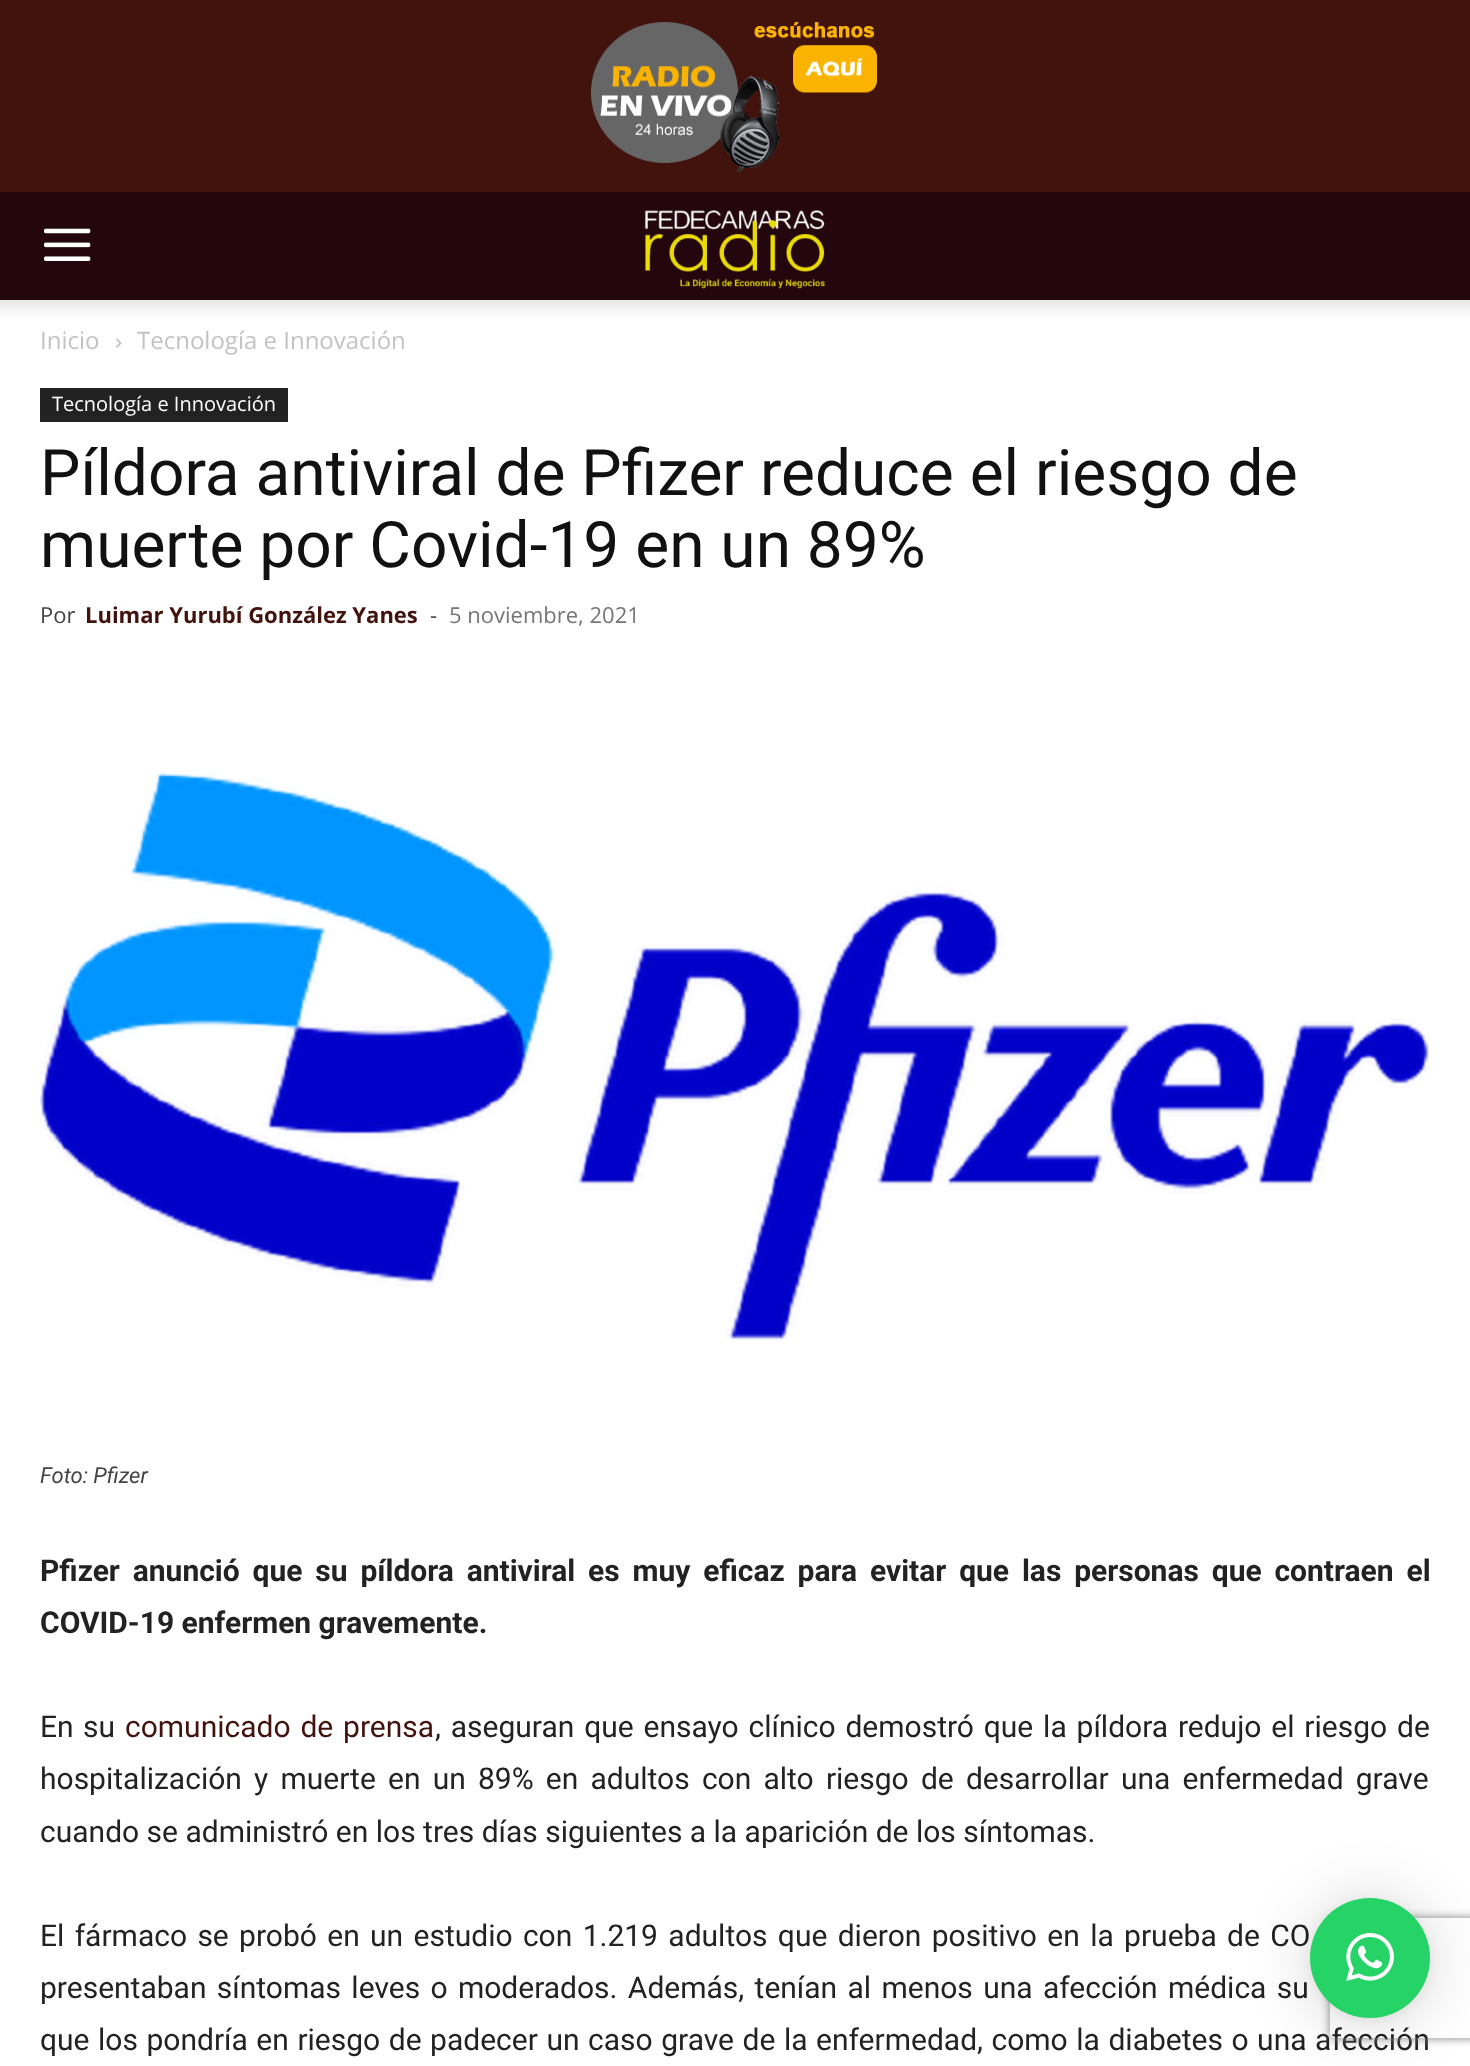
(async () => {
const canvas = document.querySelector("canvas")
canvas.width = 1470
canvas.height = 2066
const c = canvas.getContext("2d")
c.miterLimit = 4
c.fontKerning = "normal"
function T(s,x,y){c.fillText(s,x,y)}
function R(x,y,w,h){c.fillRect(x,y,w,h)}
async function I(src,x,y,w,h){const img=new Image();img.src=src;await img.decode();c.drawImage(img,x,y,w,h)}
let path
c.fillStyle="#fff"
R(0,0,1470,2066)
c.fillStyle="#42120d"
R(0,0,1470,192)
await I("1.png",591,22,286,150)
c.fillStyle="#23060e"
R(0,192,1470,108)
await I("2.png",44,228,47,33)
await I("3.png",644,210,182,79)
await I("4.png",0,300,1470,17)
c.font="24px Open Sans"
c.fillStyle="#c3c3c3"
T("Inicio",40,349)
await I("5.png",116,338,6,10)
T("Tecnología e Innovación",137,349)
c.fillStyle="#222"
R(40,388,248,34)
c.font="20px Open Sans"
c.fillStyle="#fff"
T("Tecnología e Innovación",52,411)
c.font="64px Roboto"
c.fillStyle="#111"
T("Píldora antiviral de Pfizer reduce el riesgo de",40,495)
T("muerte por Covid-19 en un 89%",40,567)
c.font="22px Open Sans"
c.fillStyle="#444"
T("Por",40,623)
c.font="bold 22px Open Sans"
c.fillStyle="#42120d"
T("Luimar Yurubí González Yanes",85,623)
c.font="22px Open Sans"
c.fillStyle="#444"
T("-",430,623)
c.fillStyle="#767676"
T("5 noviembre, 2021",449,623)
await I("6.png",40,770,1390,570)
c.font="italic 22px Roboto"
c.fillStyle="#444"
T("Foto: Pfizer",40,1483)
c.wordSpacing="5.4px"
c.font="bold 30px Roboto"
c.fillStyle="#222"
T("Pfizer anunció que su píldora antiviral es muy eficaz para evitar que las personas que contraen el",40,1581)
c.wordSpacing="0px"
T("COVID-19 enfermen gravemente.",40,1633)
c.wordSpacing="2px"
c.font="30px Roboto"
T("En su",40,1737)
c.wordSpacing="2.4px"
c.fillStyle="#42120d"
T("comunicado de prensa",125,1737)
c.fillStyle="#222"
T(", aseguran que ensayo clínico demostró que la píldora redujo el riesgo de",435,1737)
c.wordSpacing="4.75px"
T("hospitalización y muerte en un 89% en adultos con alto riesgo de desarrollar una enfermedad grave",40,1789)
c.wordSpacing="0px"
T("cuando se administró en los tres días siguientes a la aparición de los síntomas.",40,1842)
c.wordSpacing="2.9px"
T("El fármaco se probó en un estudio con 1.219 adultos que dieron positivo en la prueba de CO",40,1946)
T("presentaban síntomas leves o moderados. Además, tenían al menos una afección médica su",40,1998)
c.wordSpacing="1.1px"
T("que los pondría en riesgo de padecer un caso grave de la enfermedad, como la diabetes o una afección",40,2050)
c.fillStyle="#00000029"
c.filter="blur(32px)"
c.beginPath()
c.roundRect(1310,1902,120,120,60)
c.fill()
c.filter="none"
c.fillStyle="#0000000f"
c.filter="blur(6px)"
c.beginPath()
c.roundRect(1310,1900,120,120,60)
c.fill()
c.filter="none"
c.save()
path = new Path2D("M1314 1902h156v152h-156zm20 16h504c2 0 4 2 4 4v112c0 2-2 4-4 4h-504c-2 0-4-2-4-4v-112c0-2 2-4 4-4z")
c.clip(path,"evenodd")
c.fillStyle="#808080"
c.filter="blur(5px)"
c.beginPath()
c.roundRect(1330,1918,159,120,4)
c.fill()
c.filter="none"
c.restore()
c.fillStyle="#25d366"
c.beginPath()
c.arc(1370,1958,60,0,7)
c.fill()
await I("7.png",1346,1933,48,48)
})()
